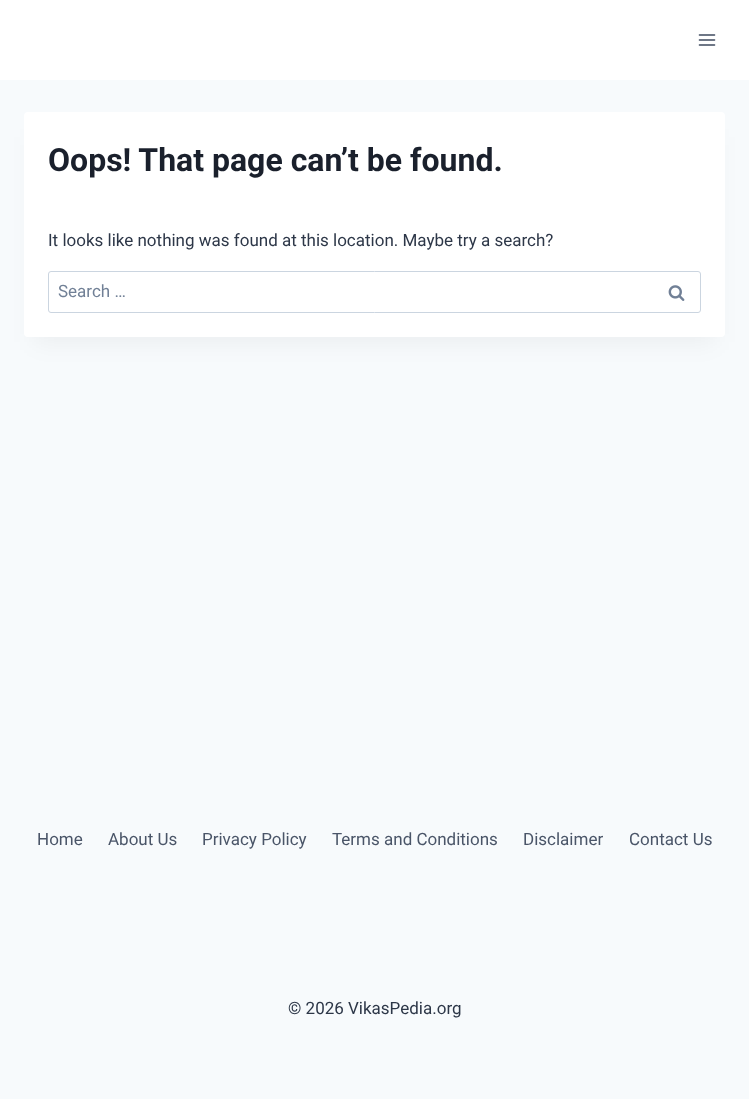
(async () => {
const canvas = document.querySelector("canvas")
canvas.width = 749
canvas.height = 1099
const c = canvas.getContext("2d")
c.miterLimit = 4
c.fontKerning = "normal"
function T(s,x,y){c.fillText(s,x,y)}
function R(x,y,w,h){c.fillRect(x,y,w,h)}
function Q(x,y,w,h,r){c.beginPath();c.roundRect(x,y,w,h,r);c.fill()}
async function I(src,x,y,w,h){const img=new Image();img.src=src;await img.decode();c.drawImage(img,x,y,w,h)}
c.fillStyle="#f7fafc"
R(0,0,749,1099)
c.fillStyle="#fff"
R(0,0,749,80)
await I("1.png",698,34,18,12)
c.fillStyle="#0000000d"
c.filter="blur(12.5px)"
c.beginPath()
c.rect(34,137,681,205)
c.fill()
c.filter="none"
c.fillStyle="#fff"
Q(24,112,701,225,4)
c.font="bold 32px Roboto"
c.fillStyle="#1a202c"
T("Oops! That page can’t be found.",48,171)
c.font="17px Roboto"
c.fillStyle="#2d3748"
T("It looks like nothing was found at this location. Maybe try a search?",48,246)
c.beginPath()
c.roundRect(48.5,271.5,652,41,2.5)
c.strokeStyle="#cbd5e0"
c.stroke()
c.fillStyle="#718096"
T("Search …",58,297)
await I("2.png",668,285,17,16)
c.fillStyle="#4a5568"
T("Home",37,845)
T("About Us",108,845)
T("Privacy Policy",202,845)
T("Terms and Conditions",332,845)
T("Disclaimer",523,845)
T("Contact Us",629,845)
c.fillStyle="#2d3748"
T("© 2026 VikasPedia.org",288,1014)
})()
